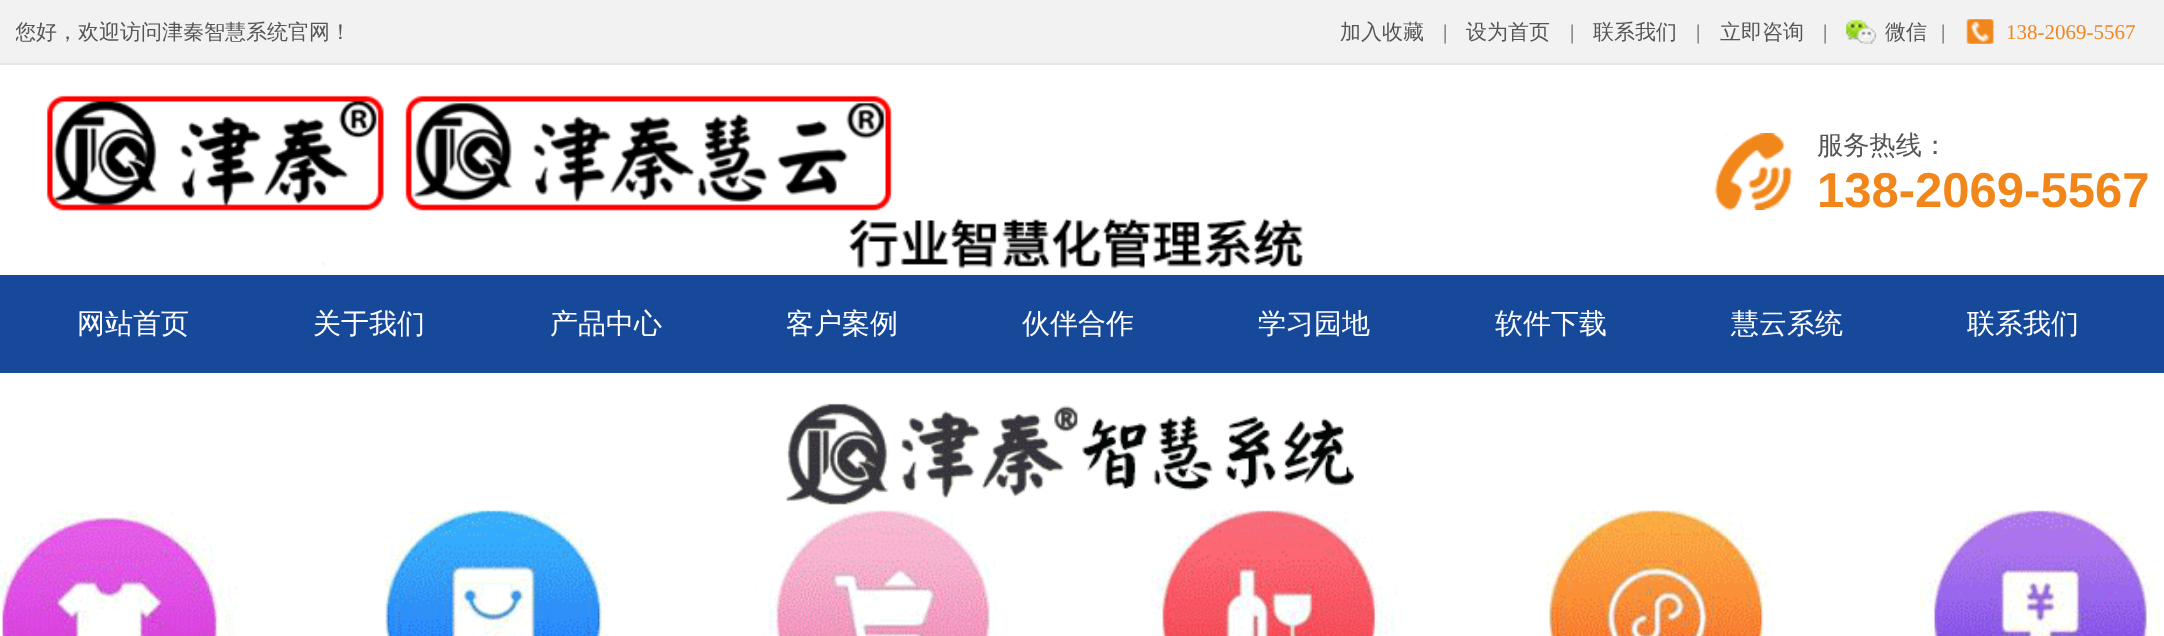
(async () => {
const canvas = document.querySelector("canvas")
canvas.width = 2164
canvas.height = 636
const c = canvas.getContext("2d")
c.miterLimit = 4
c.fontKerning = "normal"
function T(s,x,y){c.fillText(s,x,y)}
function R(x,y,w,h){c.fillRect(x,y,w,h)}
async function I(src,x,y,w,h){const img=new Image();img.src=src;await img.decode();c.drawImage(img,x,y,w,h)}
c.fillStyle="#fff"
R(0,0,2164,636)
c.fillStyle="#f2f2f2"
R(0,0,2164,63)
c.fillStyle="#e5e5e5"
R(0,63,2164,2)
c.save()
c.beginPath()
c.rect(16,0,336,63)
c.clip()
c.font="500 21px WenQuanYi Zen Hei"
c.fillStyle="#555"
T("您好，欢迎访问津秦智慧系统官网！",15,39)
c.restore()
c.font="500 21px WenQuanYi Zen Hei"
c.fillStyle="#555"
T("加入收藏",1340,39)
c.font="21px Liberation Serif"
T("|",1443,39)
c.font="500 21px WenQuanYi Zen Hei"
T("设为首页",1466,39)
c.font="21px Liberation Serif"
T("|",1570,39)
c.font="500 21px WenQuanYi Zen Hei"
T("联系我们",1593,39)
c.font="21px Liberation Serif"
T("|",1696,39)
c.font="500 21px WenQuanYi Zen Hei"
T("立即咨询",1720,39)
c.font="21px Liberation Serif"
T("|",1823,39)
await I("1.png",1846,19,30,25)
c.font="500 21px WenQuanYi Zen Hei"
T("微信",1885,39)
c.font="21px Liberation Serif"
T("|",1941,39)
await I("2.png",1966,19,28,25)
c.fillStyle="#f1861b"
T("138-2069-5567",2006,39)
await I("3.png",46,95,1257,174)
await I("4.png",1714,133,79,77)
c.font="500 26.25px WenQuanYi Zen Hei"
c.fillStyle="#555"
T("服务热线：",1817,154)
c.font="bold 49px Liberation Sans"
c.fillStyle="#f1861b"
T("138-2069-5567",1817,207)
c.fillStyle="#16499a"
R(0,275,2164,98)
c.font="500 28px WenQuanYi Zen Hei"
c.fillStyle="#fff"
T("网站首页",77,333)
T("关于我们",313,333)
T("产品中心",550,333)
T("客户案例",786,333)
T("伙伴合作",1022,333)
T("学习园地",1258,333)
T("软件下载",1495,333)
T("慧云系统",1731,333)
T("联系我们",1967,333)
await I("5.png",0,403,2163,233)
})()
